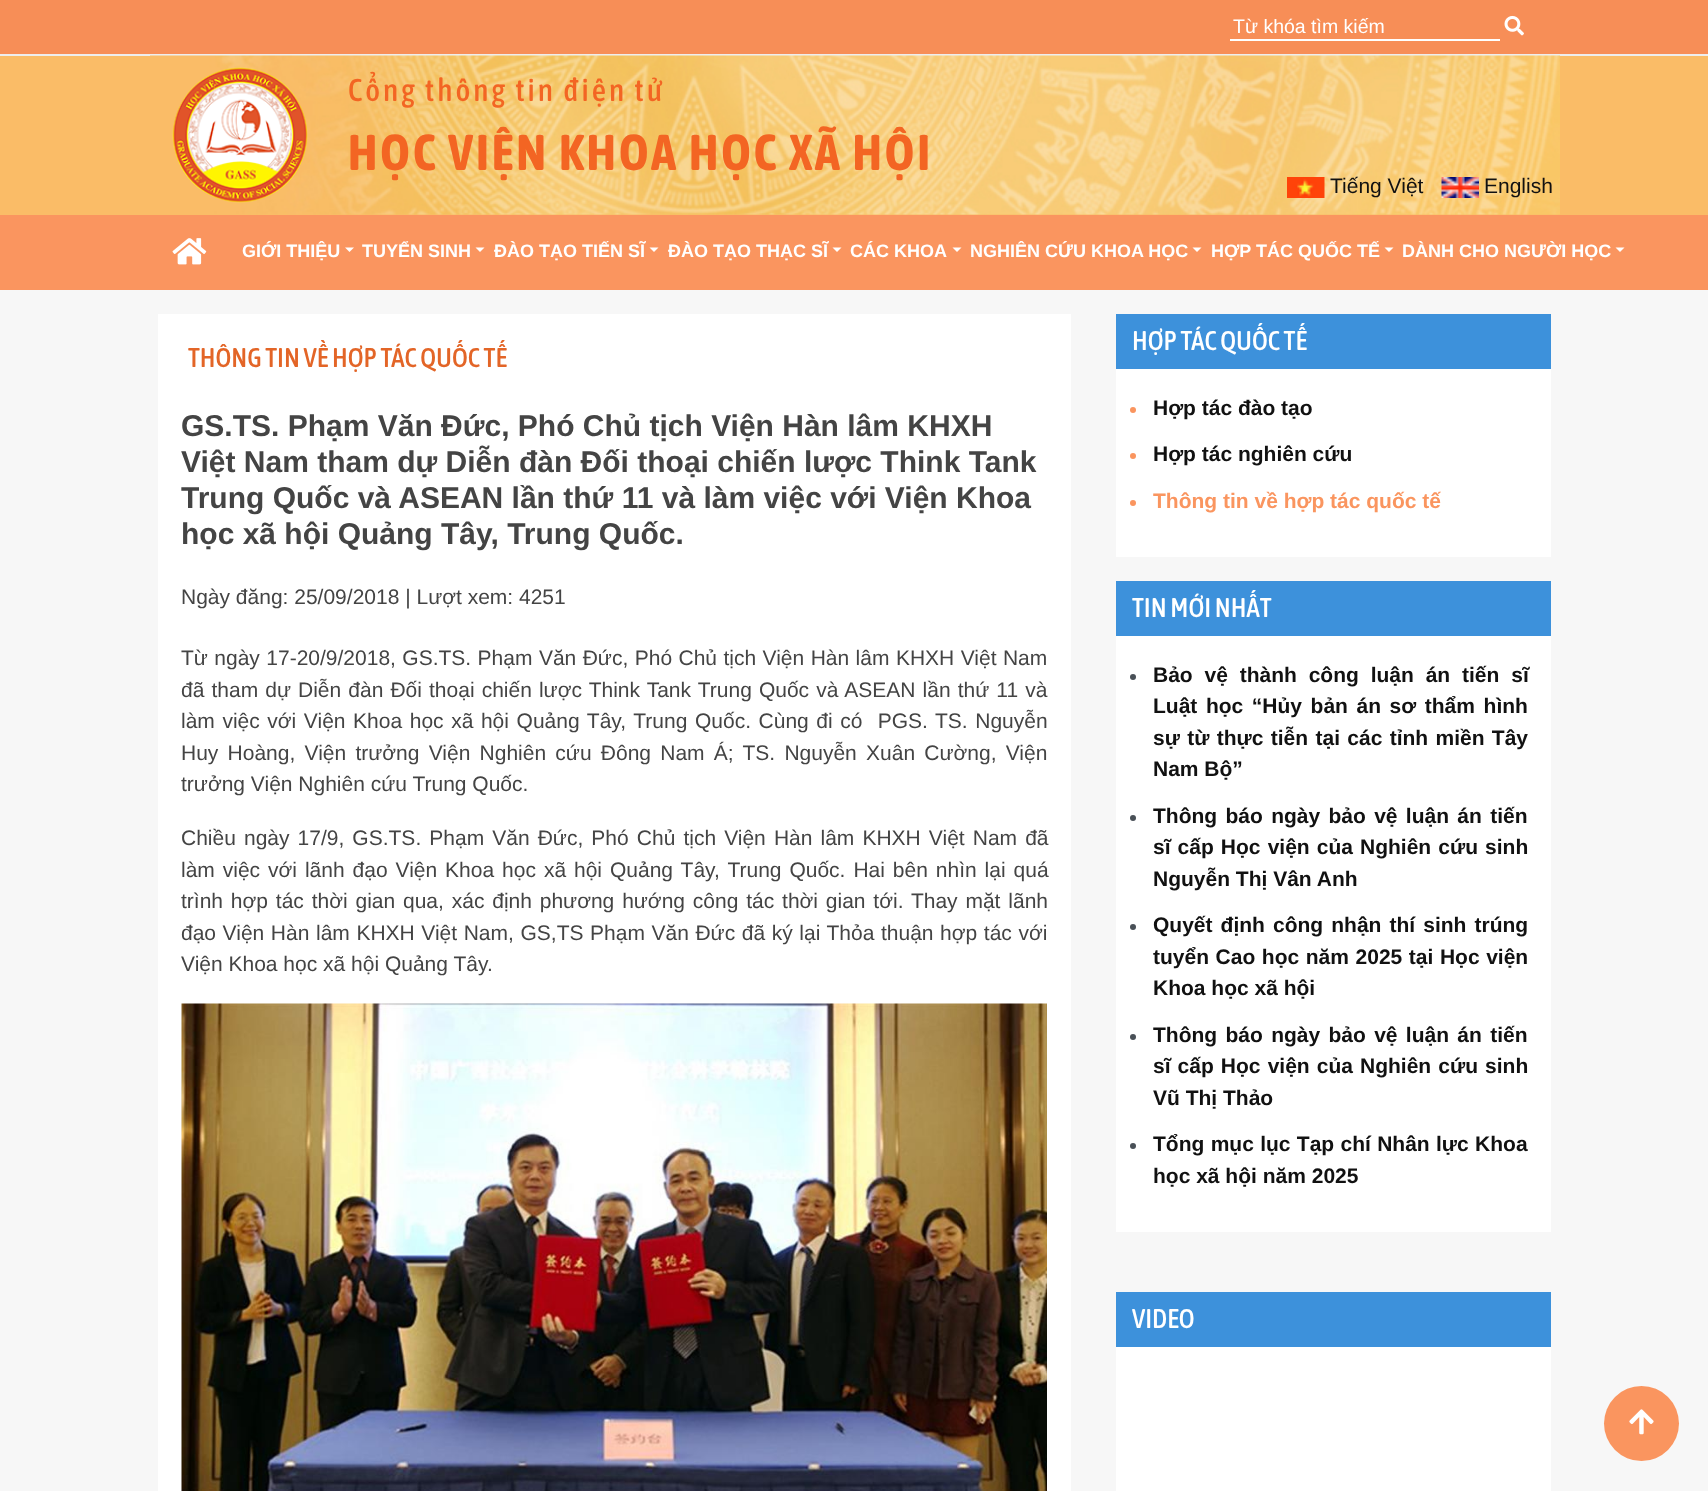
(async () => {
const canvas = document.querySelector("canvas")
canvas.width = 1708
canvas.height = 1491
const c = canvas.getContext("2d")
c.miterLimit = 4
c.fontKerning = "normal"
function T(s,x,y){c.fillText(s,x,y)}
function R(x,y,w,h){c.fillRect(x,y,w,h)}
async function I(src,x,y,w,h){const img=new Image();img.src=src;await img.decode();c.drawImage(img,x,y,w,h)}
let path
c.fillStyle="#f7f7f7"
R(0,0,1708,1491)
c.fillStyle="#f78e57"
R(0,0,1708,54)
c.fillStyle="#eee"
R(0,54,1708,2)
c.fillStyle="#fff"
R(1230,39,270,2)
c.font="19.5px Liberation Sans"
T("Từ khóa tìm kiếm",1233,33)
await I("1.png",1504,15,20,21)
c.fillStyle="#fabc67"
R(0,56,1708,159)
await I("2.png",150,55,1410,160)
await I("3.png",172,67,136,136)
c.letterSpacing="3px"
c.font="500 31.5px Asap Condensed"
c.fillStyle="#f36523"
T("Cổng thông tin điện tử",348,101)
c.font="bold 50.4px Asap Condensed"
T("HỌC VIỆN KHOA HỌC XÃ HỘI",348,170)
await I("4.png",1287,177,38,21)
c.letterSpacing="0px"
c.font="21px Liberation Sans"
c.fillStyle="#111"
T("Tiếng Việt",1330,193)
await I("5.png",1441,177,38,21)
T("English",1484,193)
c.fillStyle="#fa955f"
R(0,215,1708,75)
await I("6.png",172,238,35,27)
c.font="bold 18px Liberation Sans"
c.fillStyle="#fff"
T("GIỚI THIỆU",242,257)
path = new Path2D("M345 247.5h9l-4.5 4.5z")
c.fill(path)
T("TUYỂN SINH",362,257)
path = new Path2D("M475.5 247.5h9l-4.5 4.5z")
c.fill(path)
T("ĐÀO TẠO TIẾN SĨ",494,257)
path = new Path2D("M649.5 247.5h9l-4.5 4.5z")
c.fill(path)
T("ĐÀO TẠO THẠC SĨ",668,257)
path = new Path2D("M832.5 247.5h9l-4.5 4.5z")
c.fill(path)
T("CÁC KHOA",850,257)
path = new Path2D("M952.5 247.5h9l-4.5 4.5z")
c.fill(path)
T("NGHIÊN CỨU KHOA HỌC",970,257)
path = new Path2D("M1192.5 247.5h9l-4.5 4.5z")
c.fill(path)
T("HỢP TÁC QUỐC TẾ",1211,257)
path = new Path2D("M1384.5 247.5h9l-4.5 4.5z")
c.fill(path)
T("DÀNH CHO NGƯỜI HỌC",1402,257)
path = new Path2D("M1615.5 247.5h9l-4.5 4.5z")
c.fill(path)
R(158,314,913,1177)
c.font="500 27px Asap Condensed"
c.fillStyle="#e36527"
T("THÔNG TIN VỀ HỢP TÁC QUỐC TẾ",188,367)
c.font="bold 30px Liberation Sans"
c.fillStyle="#444"
T("GS.TS. Phạm Văn Đức, Phó Chủ tịch Viện Hàn lâm KHXH",181,436)
T("Việt Nam tham dự Diễn đàn Đối thoại chiến lược Think Tank",181,472)
T("Trung Quốc và ASEAN lần thứ 11 và làm việc với Viện Khoa",181,508)
T("học xã hội Quảng Tây, Trung Quốc.",181,544)
c.font="21px Liberation Sans"
T("Ngày đăng: 25/09/2018 | Lượt xem: 4251",181,604)
c.wordSpacing="0.6px"
T("Từ ngày 17-20/9/2018, GS.TS. Phạm Văn Đức, Phó Chủ tịch Viện Hàn lâm KHXH Việt Nam",181,665)
c.wordSpacing="1.25px"
T("đã tham dự Diễn đàn Đối thoại chiến lược Think Tank Trung Quốc và ASEAN lần thứ 11 và",181,697)
c.wordSpacing="1.75px"
T("làm việc với Viện Khoa học xã hội Quảng Tây, Trung Quốc. Cùng đi có  PGS. TS. Nguyễn",181,728)
c.wordSpacing="3.4px"
T("Huy Hoàng, Viện trưởng Viện Nghiên cứu Đông Nam Á; TS. Nguyễn Xuân Cường, Viện",181,760)
c.wordSpacing="0px"
T("trưởng Viện Nghiên cứu Trung Quốc.",181,791)
c.wordSpacing="2.25px"
T("Chiều ngày 17/9, GS.TS. Phạm Văn Đức, Phó Chủ tịch Viện Hàn lâm KHXH Việt Nam đã",181,845)
c.wordSpacing="2.1px"
T("làm việc với lãnh đạo Viện Khoa học xã hội Quảng Tây, Trung Quốc. Hai bên nhìn lại quá",181,877)
c.wordSpacing="2px"
T("trình hợp tác thời gian qua, xác định phương hướng công tác thời gian tới. Thay mặt lãnh",181,908)
c.wordSpacing="0.75px"
T("đạo Viện Hàn lâm KHXH Việt Nam, GS,TS Phạm Văn Đức đã ký lại Thỏa thuận hợp tác với",181,940)
c.wordSpacing="0px"
T("Viện Khoa học xã hội Quảng Tây.",181,971)
await I("7.png",181,1003,866,488)
c.fillStyle="#fff"
R(1116,369,435,188)
c.fillStyle="#3d91db"
R(1116,314,435,55)
c.font="500 27px Asap Condensed"
c.fillStyle="#fff"
T("HỢP TÁC QUỐC TẾ",1132,350)
c.fillStyle="#fa955f"
c.beginPath()
c.arc(1133,410,3,0,7)
c.fill()
c.font="bold 21px Liberation Sans"
c.fillStyle="#111"
T("Hợp tác đào tạo",1153,415)
c.fillStyle="#fa955f"
c.beginPath()
c.arc(1133,456,3,0,7)
c.fill()
c.fillStyle="#111"
T("Hợp tác nghiên cứu",1153,461)
c.fillStyle="#fa955f"
c.beginPath()
c.arc(1133,503,3,0,7)
c.fill()
T("Thông tin về hợp tác quốc tế",1153,508)
c.fillStyle="#fff"
R(1116,636,435,596)
c.fillStyle="#3d91db"
R(1116,581,435,55)
c.font="500 27px Asap Condensed"
c.fillStyle="#fff"
T("TIN MỚI NHẤT",1132,617)
c.fillStyle="#495057"
c.beginPath()
c.arc(1133,677,3,0,7)
c.fill()
c.wordSpacing="6px"
c.font="bold 21px Liberation Sans"
c.fillStyle="#111"
T("Bảo vệ thành công luận án tiến sĩ",1153,682)
c.wordSpacing="2.75px"
T("Luật học “Hủy bản án sơ thẩm hình",1153,713)
c.wordSpacing="1.5px"
T("sự từ thực tiễn tại các tỉnh miền Tây",1153,745)
c.wordSpacing="0px"
T("Nam Bộ”",1153,776)
c.fillStyle="#495057"
c.beginPath()
c.arc(1133,818,3,0,7)
c.fill()
c.wordSpacing="2.5px"
c.fillStyle="#111"
T("Thông báo ngày bảo vệ luận án tiến",1153,823)
c.wordSpacing="1.25px"
T("sĩ cấp Học viện của Nghiên cứu sinh",1153,854)
c.wordSpacing="0px"
T("Nguyễn Thị Vân Anh",1153,886)
c.fillStyle="#495057"
c.beginPath()
c.arc(1133,927,3,0,7)
c.fill()
c.wordSpacing="2.25px"
c.fillStyle="#111"
T("Quyết định công nhận thí sinh trúng",1153,932)
c.wordSpacing="0.75px"
T("tuyển Cao học năm 2025 tại Học viện",1153,964)
c.wordSpacing="0px"
T("Khoa học xã hội",1153,995)
c.fillStyle="#495057"
c.beginPath()
c.arc(1133,1037,3,0,7)
c.fill()
c.wordSpacing="2.5px"
c.fillStyle="#111"
T("Thông báo ngày bảo vệ luận án tiến",1153,1042)
c.wordSpacing="1.25px"
T("sĩ cấp Học viện của Nghiên cứu sinh",1153,1073)
c.wordSpacing="0px"
T("Vũ Thị Thảo",1153,1105)
c.fillStyle="#495057"
c.beginPath()
c.arc(1133,1146,3,0,7)
c.fill()
c.wordSpacing="0.5px"
c.fillStyle="#111"
T("Tổng mục lục Tạp chí Nhân lực Khoa",1153,1151)
c.wordSpacing="0px"
T("học xã hội năm 2025",1153,1183)
c.fillStyle="#fff"
R(1116,1347,435,144)
c.fillStyle="#3d91db"
R(1116,1292,435,55)
c.font="500 27px Asap Condensed"
c.fillStyle="#fff"
T("VIDEO",1132,1328)
c.fillStyle="#fa955f"
c.beginPath()
c.arc(1641.5,1423.5,37.5,0,7)
c.fill()
await I("8.png",1629,1409,25,26)
})()
